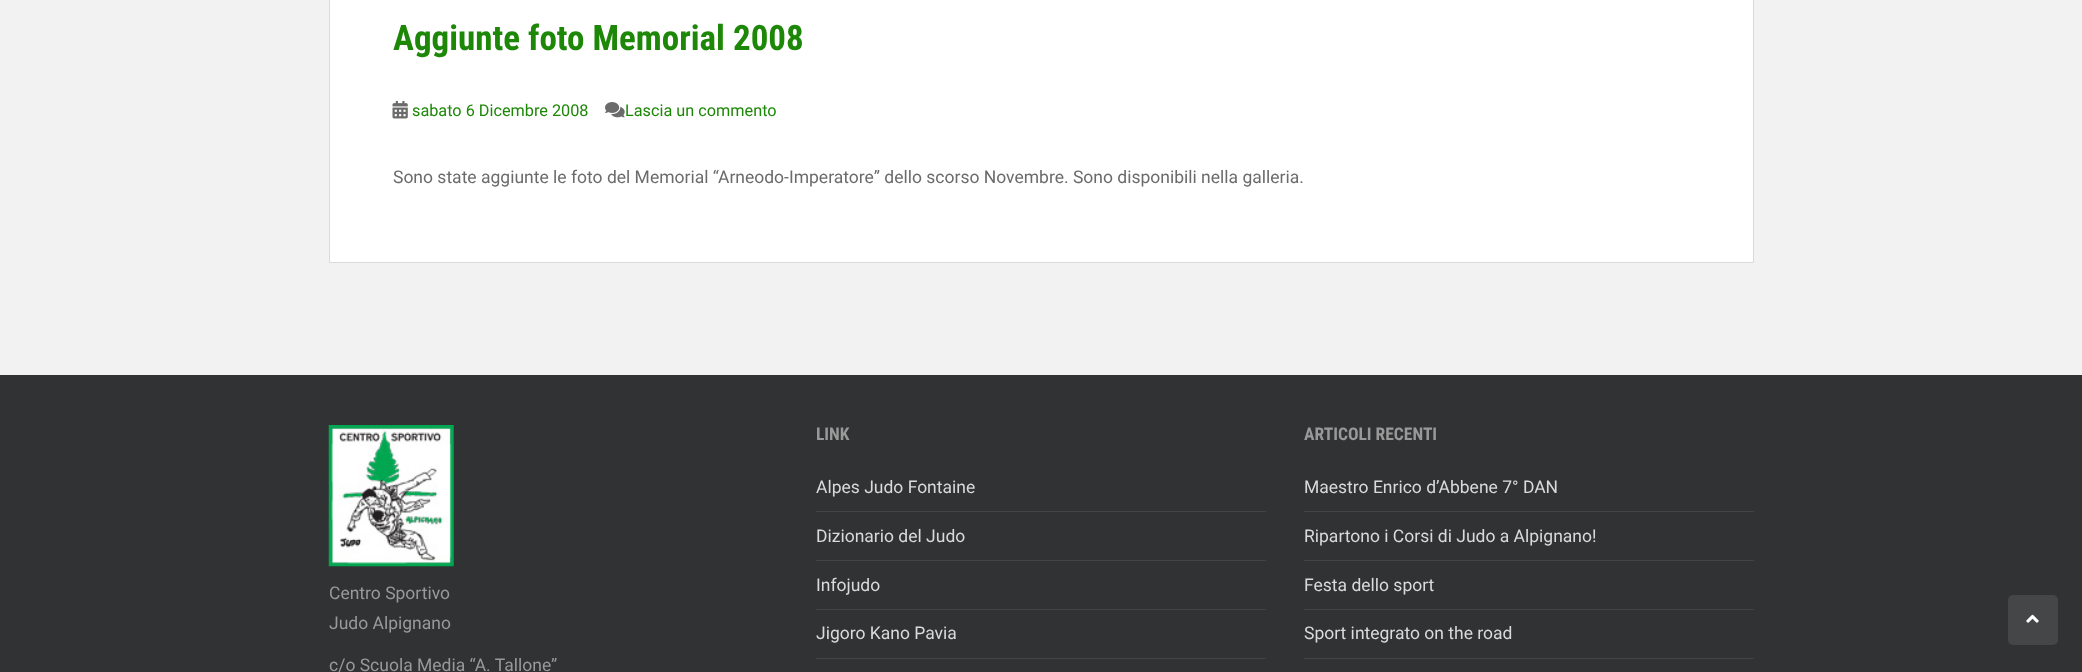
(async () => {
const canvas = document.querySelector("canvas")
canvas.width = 2082
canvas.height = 672
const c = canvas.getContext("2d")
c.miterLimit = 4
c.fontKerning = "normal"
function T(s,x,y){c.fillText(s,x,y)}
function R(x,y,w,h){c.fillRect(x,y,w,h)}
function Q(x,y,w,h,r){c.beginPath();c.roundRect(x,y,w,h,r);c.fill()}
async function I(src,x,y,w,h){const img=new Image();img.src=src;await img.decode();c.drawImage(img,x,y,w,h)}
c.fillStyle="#f2f2f2"
R(0,0,2082,672)
c.fillStyle="#fff"
c.beginPath()
c.rect(329.5,-.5,1424,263)
c.fill()
c.strokeStyle="#dadada"
c.stroke()
c.font="bold 35px Roboto Condensed"
c.fillStyle="#1d8807"
T("Aggiunte foto Memorial 2008",393,50)
await I("1.png",392,100,16,19)
c.font="16.25px Roboto"
T("sabato 6 Dicembre 2008",412,116)
await I("2.png",605,102,20,16)
T("Lascia un commento",625,116)
c.font="17.5px Roboto"
c.fillStyle="#6b6b6b"
T("Sono state aggiunte le foto del Memorial “Arneodo-Imperatore” dello scorso Novembre. Sono disponibili nella galleria.",393,183)
c.fillStyle="#313233"
R(0,375,2082,297)
await I("3.png",328,425,126,142)
c.fillStyle="#999"
T("Centro Sportivo",329,599)
T("Judo Alpignano",329,629)
T("c/o Scuola Media “A. Tallone”",329,671)
c.font="bold 17.5px Roboto Condensed"
T("LINK",816,440)
c.fillStyle="#444"
R(816,511,450,1)
c.font="17.5px Roboto"
c.fillStyle="#dadada"
T("Alpes Judo Fontaine",816,493)
c.fillStyle="#444"
R(816,560,450,1)
c.fillStyle="#dadada"
T("Dizionario del Judo",816,542)
c.fillStyle="#444"
R(816,609,450,1)
c.fillStyle="#dadada"
T("Infojudo",816,591)
c.fillStyle="#444"
R(816,658,450,1)
c.fillStyle="#dadada"
T("Jigoro Kano Pavia",816,639)
c.font="bold 17.5px Roboto Condensed"
c.fillStyle="#999"
T("ARTICOLI RECENTI",1304,440)
c.fillStyle="#444"
R(1304,511,450,1)
c.font="17.5px Roboto"
c.fillStyle="#dadada"
T("Maestro Enrico d’Abbene 7° DAN",1304,493)
c.fillStyle="#444"
R(1304,560,450,1)
c.fillStyle="#dadada"
T("Ripartono i Corsi di Judo a Alpignano!",1304,542)
c.fillStyle="#444"
R(1304,609,450,1)
c.fillStyle="#dadada"
T("Festa dello sport",1304,591)
c.fillStyle="#444"
R(1304,658,450,1)
c.fillStyle="#dadada"
T("Sport integrato on the road",1304,639)
c.fillStyle="#454647"
Q(2008,595,50,50,5)
await I("4.png",2026,614,13,9)
})()
